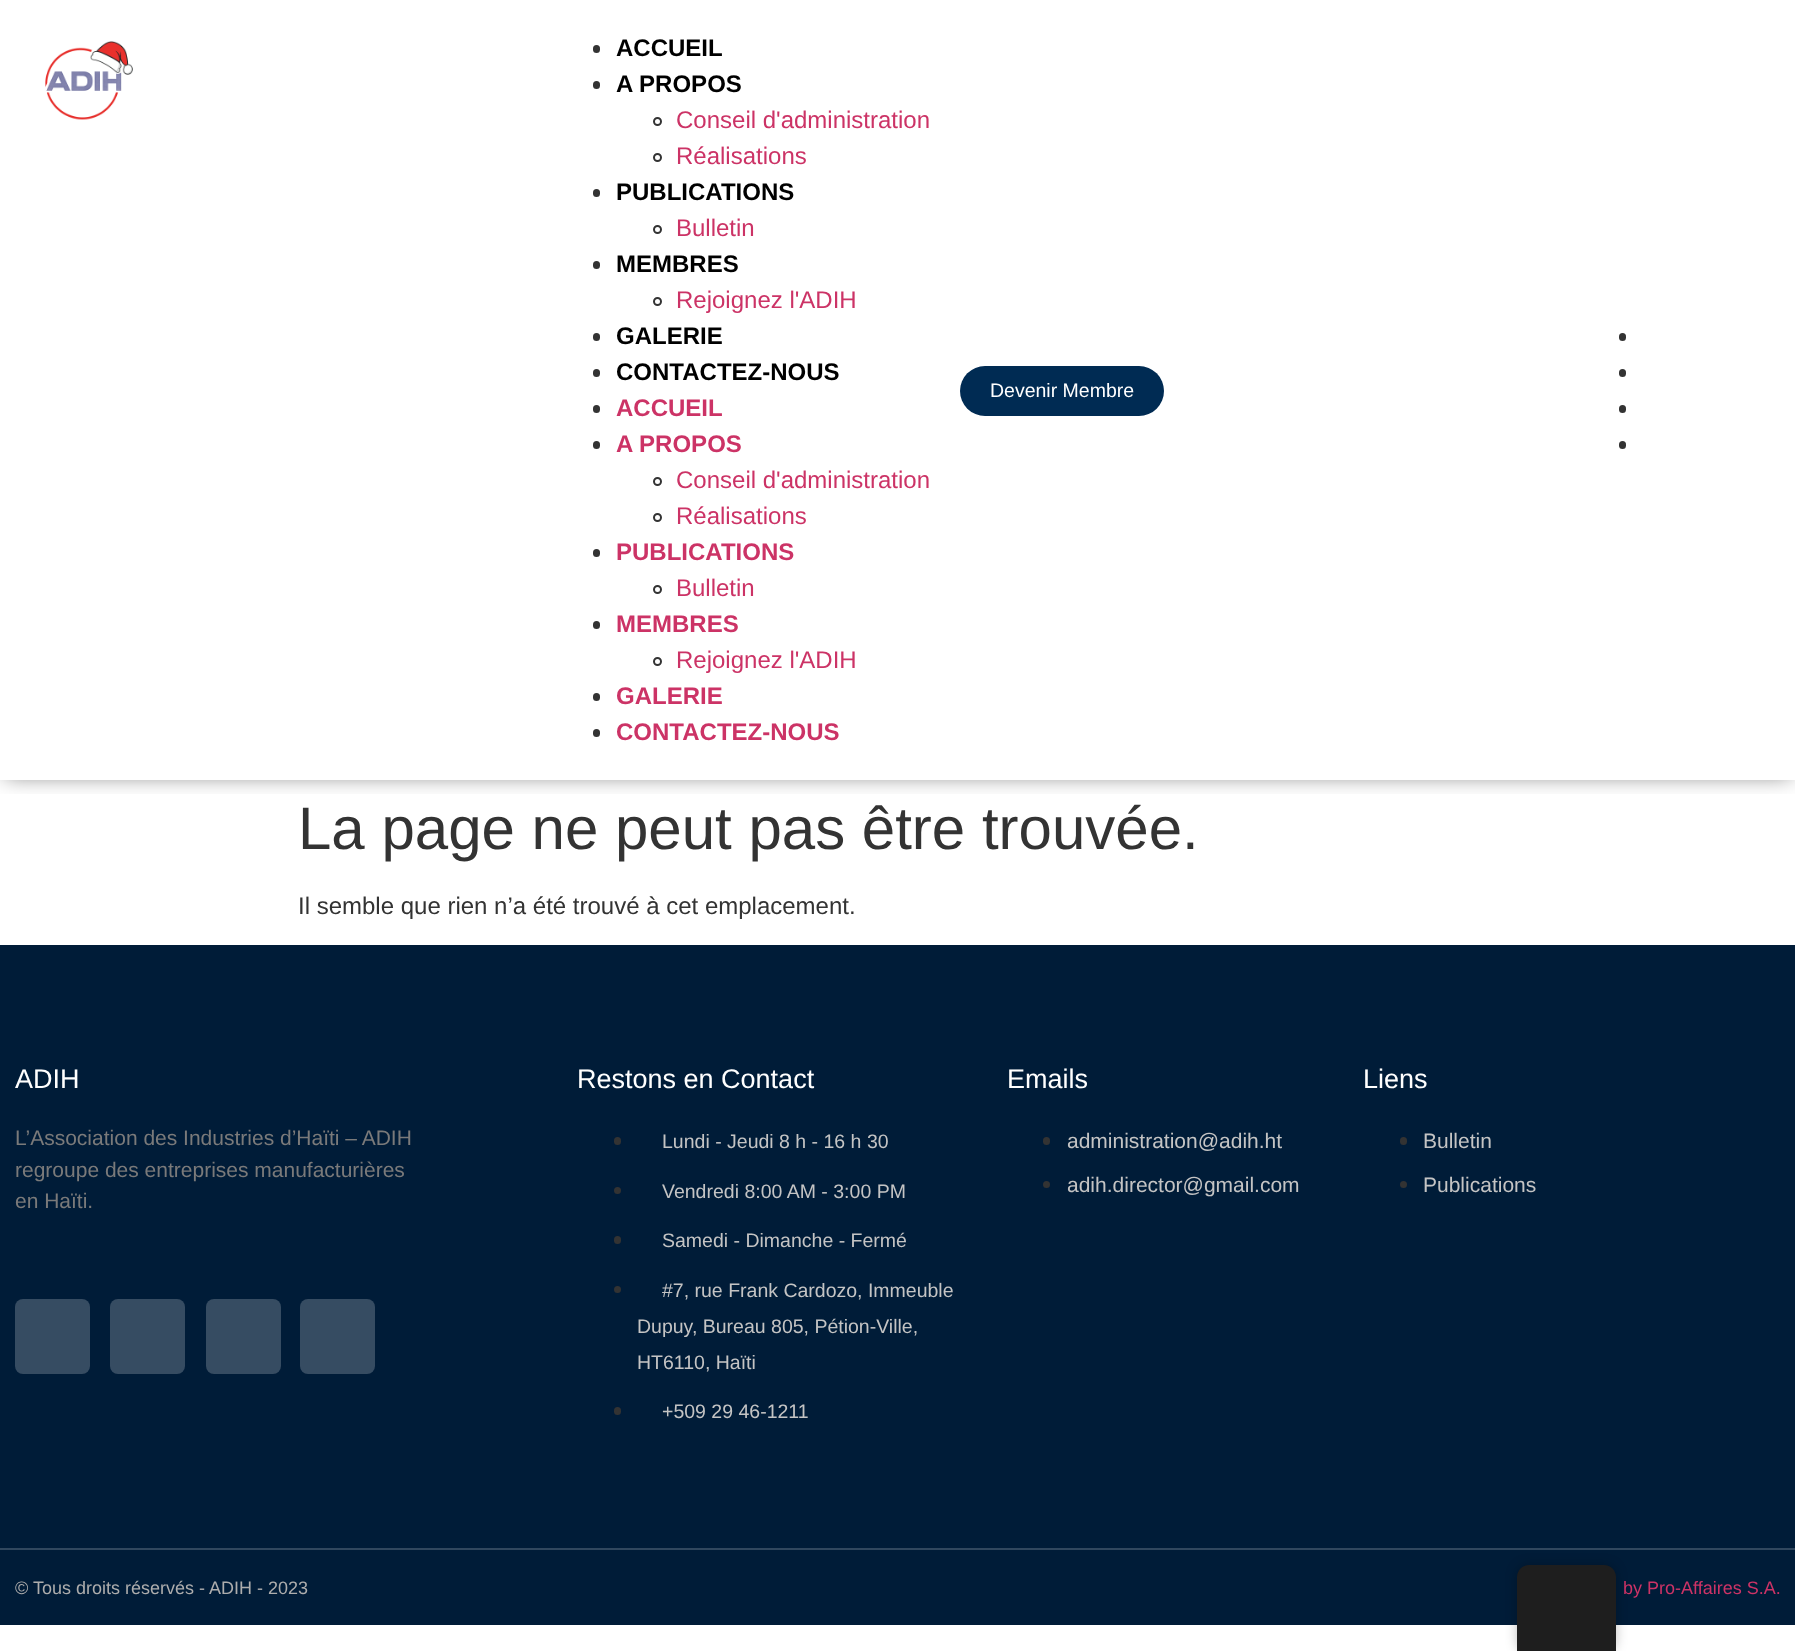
(async () => {
const canvas = document.querySelector("canvas")
canvas.width = 1795
canvas.height = 1651
const c = canvas.getContext("2d")
c.miterLimit = 4
c.fontKerning = "normal"
function T(s,x,y){c.fillText(s,x,y)}
function R(x,y,w,h){c.fillRect(x,y,w,h)}
function Q(x,y,w,h,r){c.beginPath();c.roundRect(x,y,w,h,r);c.fill()}
async function I(src,x,y,w,h){const img=new Image();img.src=src;await img.decode();c.drawImage(img,x,y,w,h)}
let path
c.fillStyle="#fff"
R(0,0,1795,1651)
c.save()
c.beginPath()
c.rect(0,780,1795,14)
c.clip()
c.fillStyle="#00000080"
c.filter="blur(10.5px)"
c.beginPath()
c.rect(5,5,1786,771)
c.fill()
c.filter="none"
c.restore()
await I("1.png",45,41,88,79)
c.fillStyle="#333"
Q(593,45,7,8,3.5)
c.font="bold 24px Liberation Sans"
c.fillStyle="#000"
T("ACCUEIL",616,56)
c.fillStyle="#333"
Q(593,81,7,8,3.5)
c.fillStyle="#000"
T("A PROPOS",616,92)
c.beginPath()
c.arc(657.5,121.5,3.5,0,7)
c.strokeStyle="#333"
c.lineWidth=2
c.stroke()
c.font="24px Liberation Sans"
c.fillStyle="#c36"
T("Conseil d'administration",676,128)
c.beginPath()
c.arc(657.5,157.5,3.5,0,7)
c.stroke()
T("Réalisations",676,164)
c.fillStyle="#333"
Q(593,189,7,8,3.5)
c.font="bold 24px Liberation Sans"
c.fillStyle="#000"
T("PUBLICATIONS",616,200)
c.beginPath()
c.arc(657.5,229.5,3.5,0,7)
c.stroke()
c.font="24px Liberation Sans"
c.fillStyle="#c36"
T("Bulletin",676,236)
c.fillStyle="#333"
Q(593,261,7,8,3.5)
c.font="bold 24px Liberation Sans"
c.fillStyle="#000"
T("MEMBRES",616,272)
c.beginPath()
c.arc(657.5,301.5,3.5,0,7)
c.stroke()
c.font="24px Liberation Sans"
c.fillStyle="#c36"
T("Rejoignez l'ADIH",676,308)
c.fillStyle="#333"
Q(593,333,7,8,3.5)
c.font="bold 24px Liberation Sans"
c.fillStyle="#000"
T("GALERIE",616,344)
c.fillStyle="#333"
Q(593,369,7,8,3.5)
c.fillStyle="#000"
T("CONTACTEZ-NOUS",616,380)
c.fillStyle="#333"
Q(593,405,7,8,3.5)
c.fillStyle="#c36"
T("ACCUEIL",616,416)
c.fillStyle="#333"
Q(593,441,7,8,3.5)
c.fillStyle="#c36"
T("A PROPOS",616,452)
c.beginPath()
c.arc(657.5,481.5,3.5,0,7)
c.stroke()
c.font="24px Liberation Sans"
T("Conseil d'administration",676,488)
c.beginPath()
c.arc(657.5,517.5,3.5,0,7)
c.stroke()
T("Réalisations",676,524)
c.fillStyle="#333"
Q(593,549,7,8,3.5)
c.font="bold 24px Liberation Sans"
c.fillStyle="#c36"
T("PUBLICATIONS",616,560)
c.beginPath()
c.arc(657.5,589.5,3.5,0,7)
c.stroke()
c.font="24px Liberation Sans"
T("Bulletin",676,596)
c.fillStyle="#333"
Q(593,621,7,8,3.5)
c.font="bold 24px Liberation Sans"
c.fillStyle="#c36"
T("MEMBRES",616,632)
c.beginPath()
c.arc(657.5,661.5,3.5,0,7)
c.stroke()
c.font="24px Liberation Sans"
T("Rejoignez l'ADIH",676,668)
c.fillStyle="#333"
Q(593,693,7,8,3.5)
c.font="bold 24px Liberation Sans"
c.fillStyle="#c36"
T("GALERIE",616,704)
c.fillStyle="#333"
Q(593,729,7,8,3.5)
c.fillStyle="#c36"
T("CONTACTEZ-NOUS",616,740)
c.fillStyle="#002b53"
Q(960,366,204,50,25)
c.font="19.5px Liberation Sans"
c.fillStyle="#fff"
T("Devenir Membre",990,397)
c.fillStyle="#333"
Q(1619,333,7,8,3.5)
Q(1619,369,7,8,3.5)
Q(1619,405,7,8,3.5)
Q(1619,441,7,8,3.5)
c.font="60px Liberation Sans"
T("La page ne peut pas être trouvée.",298,849)
c.font="24px Liberation Sans"
T("Il semble que rien n’a été trouvé à cet emplacement.",298,914)
c.fillStyle="#001c38"
R(0,945,1795,603)
c.font="27px Liberation Sans"
c.fillStyle="#fff"
T("ADIH",15,1088)
c.font="21px Liberation Sans"
c.fillStyle="#7a7a7a"
T("L’Association des Industries d’Haïti – ADIH",15,1145)
T("regroupe des entreprises manufacturières",15,1177)
T("en Haïti.",15,1208)
c.fillStyle="#364c62"
Q(15,1299,75,75,8)
Q(110,1299,75,75,8)
Q(206,1299,75,75,8)
Q(300,1299,75,75,8)
c.font="27px Liberation Sans"
c.fillStyle="#fff"
T("Restons en Contact",577,1088)
c.fillStyle="#333"
Q(614,1137,7,8,3.5)
c.font="19.5px Liberation Sans"
c.fillStyle="#c4c4c4"
T("Lundi - Jeudi 8 h - 16 h 30",662,1148)
c.fillStyle="#333"
c.beginPath()
c.arc(617.5,1190.5,3.5,0,7)
c.fill()
c.fillStyle="#c4c4c4"
T("Vendredi 8:00 AM - 3:00 PM",662,1198)
c.fillStyle="#333"
Q(614,1236,7,8,3.5)
c.fillStyle="#c4c4c4"
T("Samedi - Dimanche - Fermé",662,1247)
c.fillStyle="#333"
c.beginPath()
c.arc(617.5,1289.5,3.5,0,7)
c.fill()
c.fillStyle="#c4c4c4"
T("#7, rue Frank Cardozo, Immeuble",662,1297)
T("Dupuy, Bureau 805, Pétion-Ville,",637,1333)
T("HT6110, Haïti",637,1369)
c.fillStyle="#333"
Q(614,1407,7,8,3.5)
c.fillStyle="#c4c4c4"
T("+509 29 46-1211",662,1418)
c.font="27px Liberation Sans"
c.fillStyle="#fff"
T("Emails",1007,1088)
c.fillStyle="#333"
Q(1043,1137,7,8,3.5)
c.font="21px Liberation Sans"
c.fillStyle="#c4c4c4"
T("administration@adih.ht",1067,1148)
c.fillStyle="#333"
c.beginPath()
c.arc(1046.5,1184.5,3.5,0,7)
c.fill()
c.fillStyle="#c4c4c4"
T("adih.director@gmail.com",1067,1192)
c.font="27px Liberation Sans"
c.fillStyle="#fff"
T("Liens",1363,1088)
c.fillStyle="#333"
Q(1400,1137,7,8,3.5)
c.font="21px Liberation Sans"
c.fillStyle="#c4c4c4"
T("Bulletin",1423,1148)
c.fillStyle="#333"
c.beginPath()
c.arc(1403.5,1184.5,3.5,0,7)
c.fill()
c.fillStyle="#c4c4c4"
T("Publications",1423,1192)
c.fillStyle="#001c38"
R(0,1550,1795,75)
c.fillStyle="#30475e"
R(0,1548,1795,2)
c.font="18px Liberation Sans"
c.fillStyle="#adadad"
T("© Tous droits réservés - ADIH - 2023",15,1594)
c.fillStyle="#c36"
T("by Pro-Affaires S.A.",1623,1594)
c.fillStyle="#00000040"
c.filter="blur(6px)"
c.beginPath()
c.roundRect(1517,1565,99,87,12)
c.fill()
c.filter="none"
c.fillStyle="#1e1e1e"
path = new Path2D("M1529 1565h75c6.5 0 12 5.5 12 12v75h-99v-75c0-6.5 5.5-12 12-12z")
c.fill(path)
})()
